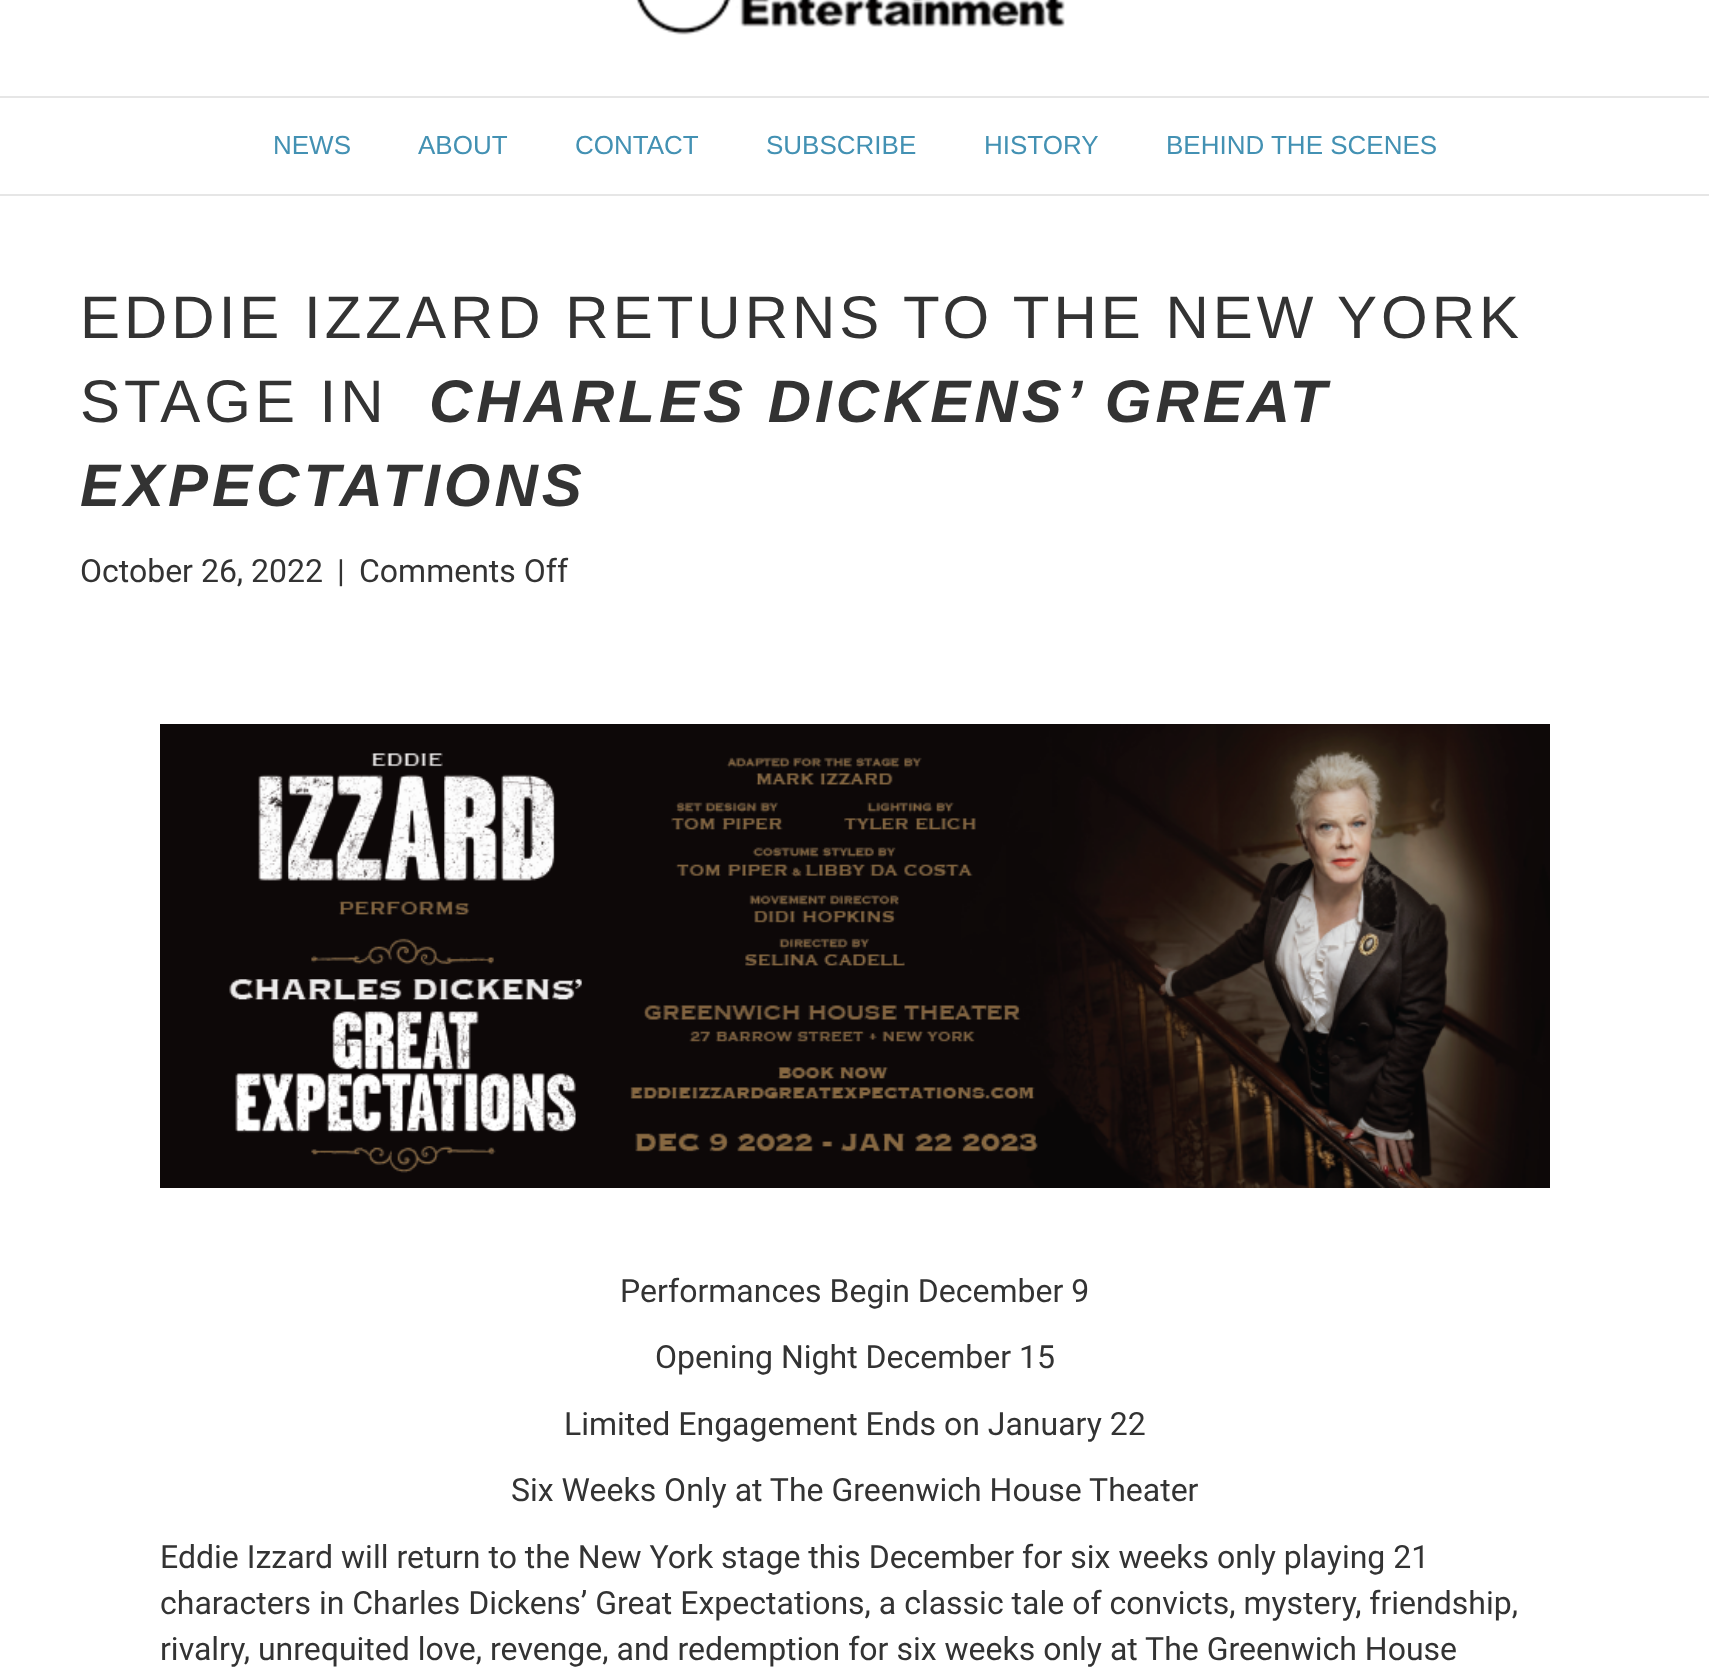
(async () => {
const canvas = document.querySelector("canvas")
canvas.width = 1709
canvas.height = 1673
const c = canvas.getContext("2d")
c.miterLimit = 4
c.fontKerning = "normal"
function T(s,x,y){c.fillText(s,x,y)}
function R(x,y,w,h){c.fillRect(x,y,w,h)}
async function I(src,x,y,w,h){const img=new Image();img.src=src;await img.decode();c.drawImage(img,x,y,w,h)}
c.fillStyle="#fff"
R(0,0,1709,1673)
await I("1.png",636,0,429,35)
c.fillStyle="#e6e6e6"
R(0,96,1709,2)
R(0,194,1709,2)
c.font="26px Liberation Sans"
c.fillStyle="#4391b3"
T("NEWS",273,154)
T("ABOUT",418,154)
T("CONTACT",575,154)
T("SUBSCRIBE",766,154)
T("HISTORY",984,154)
T("BEHIND THE SCENES",1166,154)
c.letterSpacing="4px"
c.font="60px Liberation Sans"
c.fillStyle="#333"
T("EDDIE IZZARD RETURNS TO THE NEW YORK",80,338)
T("STAGE IN",80,422)
c.font="italic bold 60px Liberation Sans"
T("CHARLES DICKENS’ GREAT",429,422)
T("EXPECTATIONS",80,506)
c.letterSpacing="0px"
c.font="32px Roboto"
T("October 26, 2022",80,582)
T("|",337,582)
T("Comments Off",359,582)
await I("2.png",160,724,1390,464)
T("Performances Begin December 9",620,1302)
T("Opening Night December 15",655,1368)
T("Limited Engagement Ends on January 22",564,1435)
T("Six Weeks Only at The Greenwich House Theater",511,1501)
T("Eddie Izzard will return to the New York stage this December for six weeks only playing 21",160,1568)
T("characters in Charles Dickens’ Great Expectations, a classic tale of convicts, mystery, friendship,",160,1614)
T("rivalry, unrequited love, revenge, and redemption for six weeks only at The Greenwich House",160,1660)
})()
